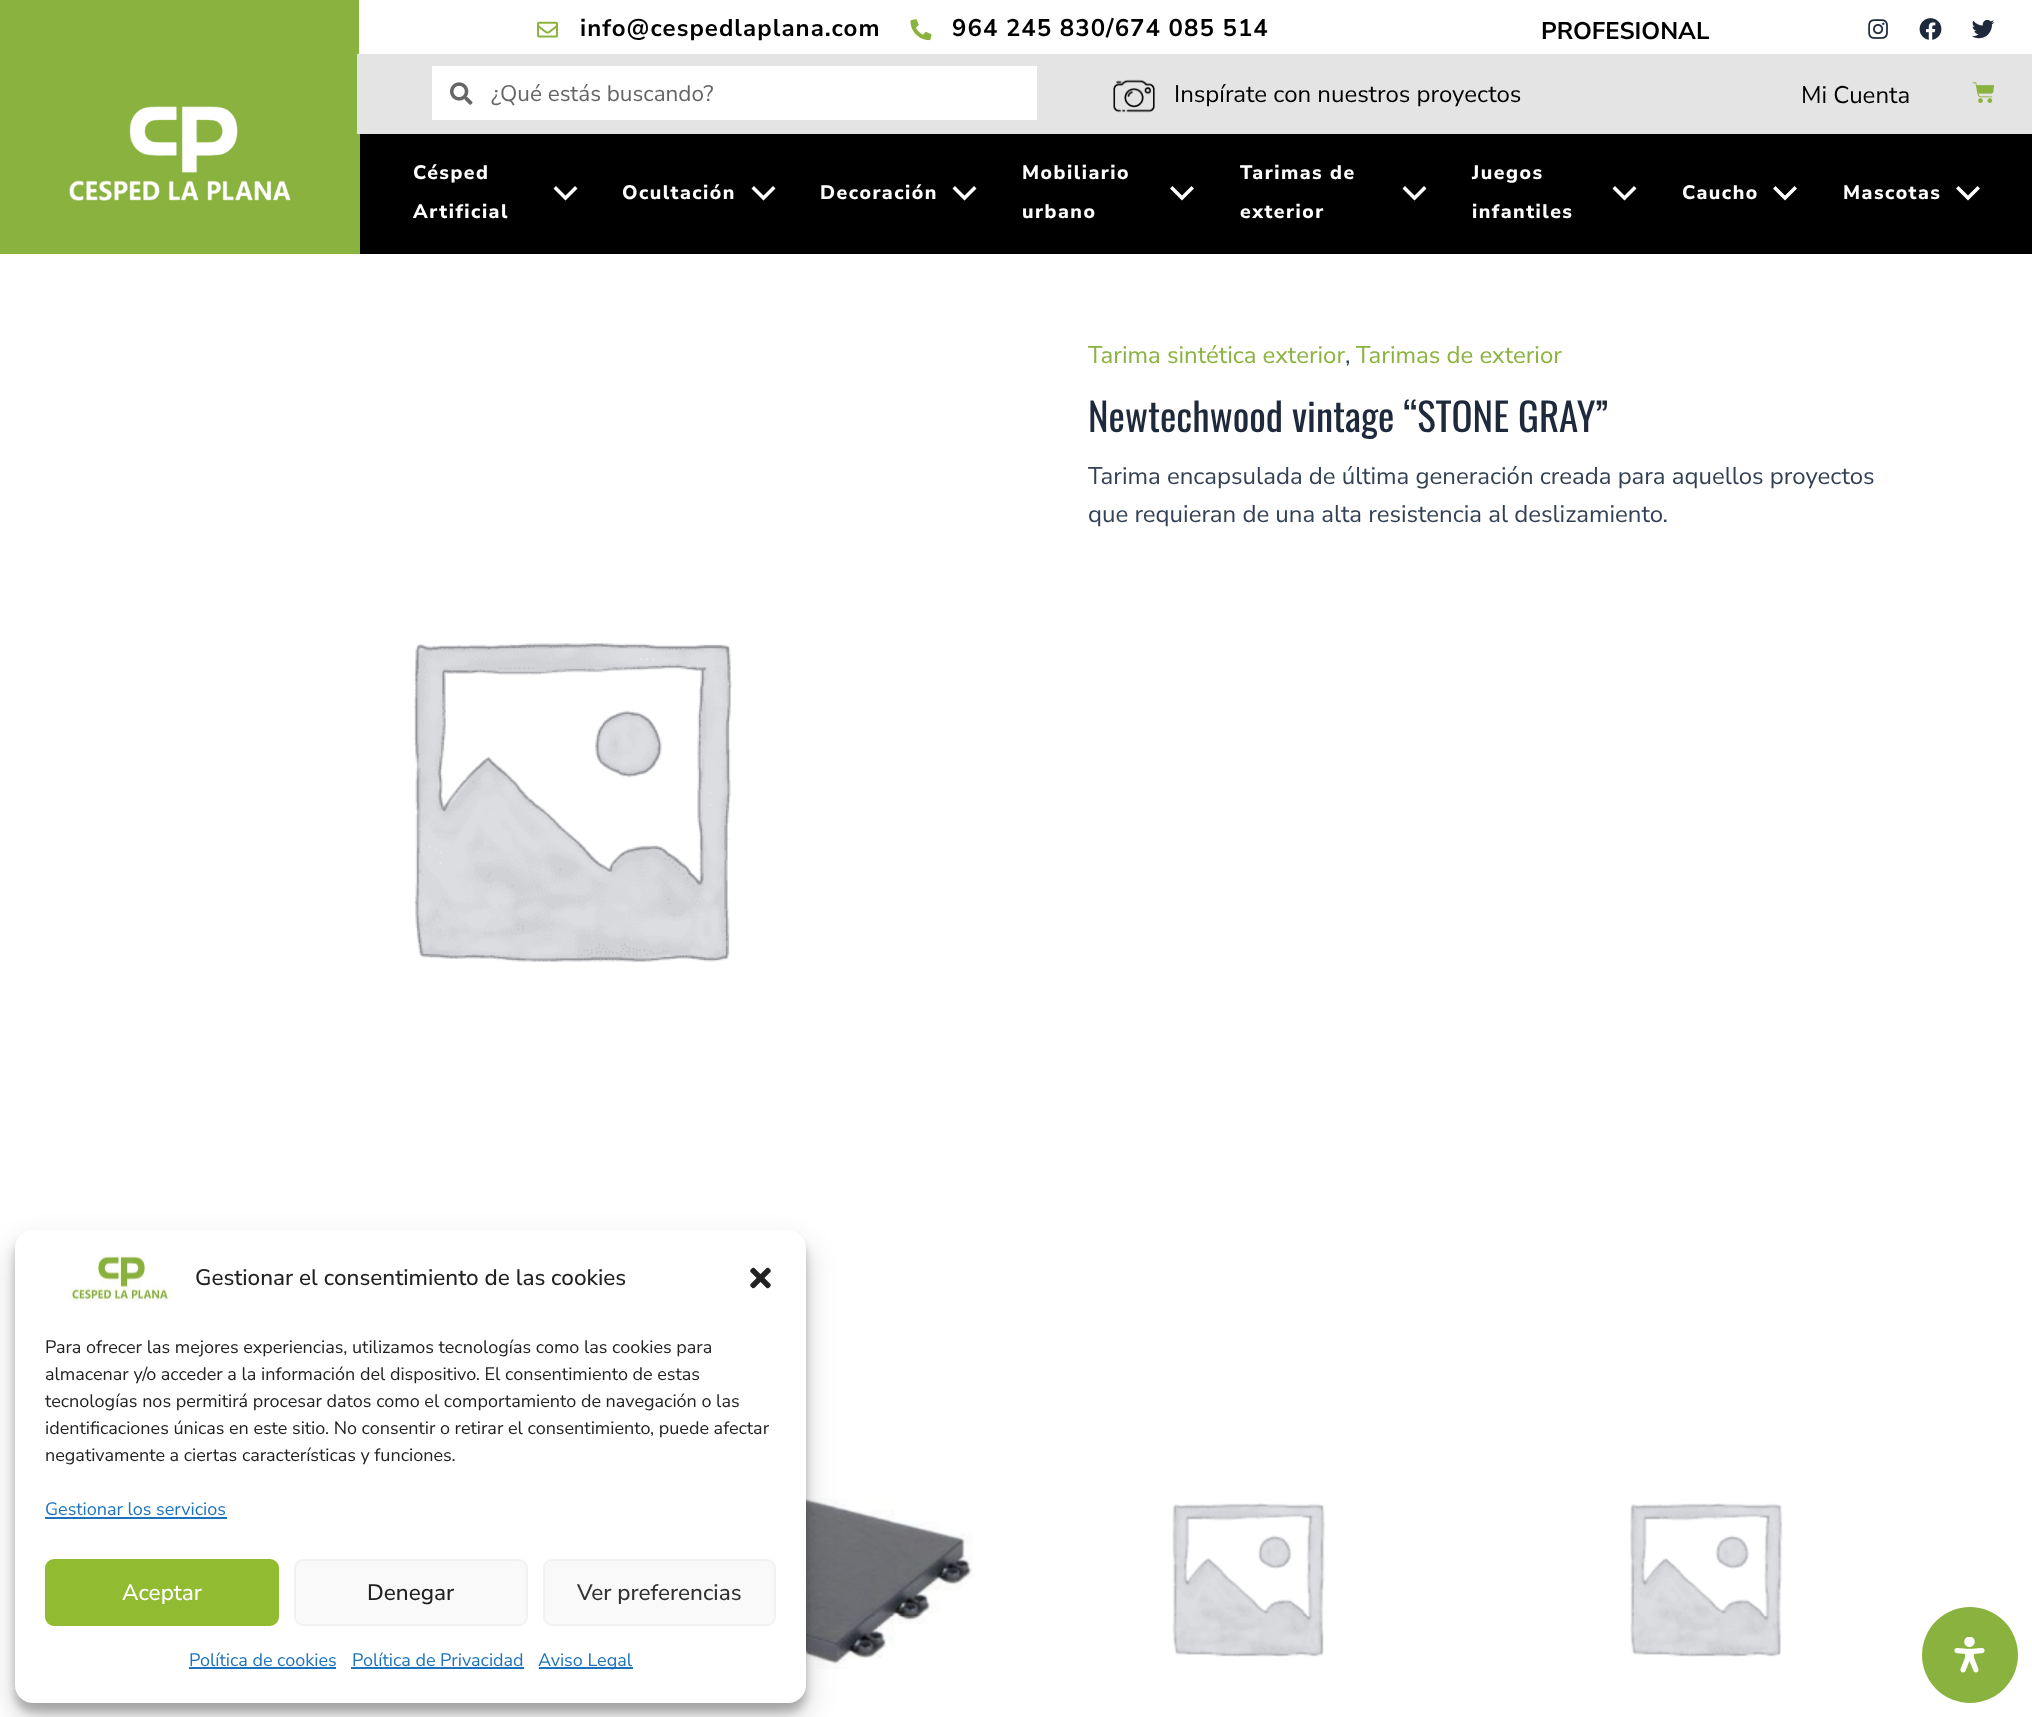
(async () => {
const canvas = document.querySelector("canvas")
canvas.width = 2032
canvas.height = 1717
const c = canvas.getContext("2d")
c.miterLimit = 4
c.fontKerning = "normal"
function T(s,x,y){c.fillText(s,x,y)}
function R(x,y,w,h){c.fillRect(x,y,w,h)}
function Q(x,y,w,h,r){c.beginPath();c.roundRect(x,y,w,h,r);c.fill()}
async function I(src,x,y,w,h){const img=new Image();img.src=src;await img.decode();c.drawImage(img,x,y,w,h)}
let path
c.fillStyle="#fff"
R(0,0,2032,1717)
c.fillStyle="#8ab23e"
R(0,0,359,54)
await I("1.png",537,21,21,17)
c.letterSpacing="1.05px"
c.font="bold 24px Nunito Sans"
c.fillStyle="#000"
T("info@cespedlaplana.com",580,36)
await I("2.png",910,19,22,22)
T("964 245 830/674 085 514",952,36)
c.letterSpacing="0px"
T("PROFESIONAL",1541,39)
await I("3.png",1868,19,20,20)
await I("4.png",1919,18,23,22)
await I("5.png",1972,19,23,20)
c.fillStyle="#e4e4e4"
R(357,54,1675,80)
c.fillStyle="#8ab23e"
R(0,54,357,80)
c.fillStyle="#fff"
R(432,66,605,54)
await I("6.png",450,82,23,23)
c.font="22.5px Nunito Sans"
c.fillStyle="#666"
T("¿Qué estás buscando?",491,101)
await I("7.png",1113,79,42,34)
c.font="24px Nunito Sans"
c.fillStyle="#000"
T("Inspírate con nuestros proyectos",1174,102)
T("Mi Cuenta",1801,103)
await I("8.png",1972,82,22,21)
R(360,134,1672,120)
c.fillStyle="#8ab23e"
R(0,134,360,120)
await I("9.png",69,106,222,95)
c.letterSpacing="1.5px"
c.font="800 19.5px Nunito Sans"
c.fillStyle="#fff"
T("Césped",413,179)
T("Artificial",413,218)
path = new Path2D("M556 186l-2.5 2.5l12 12l12-12l-2.5-2.5l-9.5 9.5z")
c.fill(path)
T("Ocultación",622,199)
path = new Path2D("M754 186l-2.5 2.5l12 12l12-12l-2.5-2.5l-9.5 9.5z")
c.fill(path)
T("Decoración",820,199)
path = new Path2D("M955 186l-2.5 2.5l12 12l12-12l-2.5-2.5l-9.5 9.5z")
c.fill(path)
T("Mobiliario",1022,179)
T("urbano",1022,218)
path = new Path2D("M1172.5 186l-2.5 2.5l12 12l12-12l-2.5-2.5l-9.5 9.5z")
c.fill(path)
T("Tarimas de",1240,179)
T("exterior",1240,218)
path = new Path2D("M1405 186l-2.5 2.5l12 12l12-12l-2.5-2.5l-9.5 9.5z")
c.fill(path)
T("Juegos",1472,179)
T("infantiles",1472,218)
path = new Path2D("M1615 186l-2.5 2.5l12 12l12-12l-2.5-2.5l-9.5 9.5z")
c.fill(path)
T("Caucho",1682,199)
path = new Path2D("M1775.5 186l-2.5 2.5l12 12l12-12l-2.5-2.5l-9.5 9.5z")
c.fill(path)
T("Mascotas",1843,199)
path = new Path2D("M1958.5 186l-2.5 2.5l12 12l12-12l-2.5-2.5l-9.5 9.5z")
c.fill(path)
c.letterSpacing="0px"
c.font="24px Nunito Sans"
c.fillStyle="#8ab23e"
T("Tarima sintética exterior",1088,363)
c.fillStyle="#334155"
T(",",1345,363)
c.fillStyle="#8ab23e"
T("Tarimas de exterior",1356,363)
c.font="39px Oswald"
c.fillStyle="#1e293b"
T("Newtechwood vintage “STONE GRAY”",1088,432)
c.font="24px Nunito Sans"
c.fillStyle="#334155"
T("Tarima encapsulada de última generación creada para aquellos proyectos",1088,484)
T("que requieran de una alta resistencia al deslizamiento.",1088,522)
await I("10.png",413,643,319,320)
await I("11.png",806,1478,167,191)
await I("12.png",1172,1503,153,154)
await I("13.png",1630,1503,153,154)
c.fillStyle="#0000003b"
c.filter="blur(4.5px)"
c.beginPath()
c.roundRect(15,1239,791,473,18)
c.fill()
c.filter="none"
c.fillStyle="#00000030"
c.filter="blur(15px)"
c.beginPath()
c.roundRect(15,1245,791,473,18)
c.fill()
c.filter="none"
c.fillStyle="#fff"
Q(15,1230,791,473,18)
await I("14.png",69,1253,104,49)
c.font="500 22.5px Nunito Sans"
c.fillStyle="#222"
T("Gestionar el consentimiento de las cookies",195,1285)
await I("15.png",750,1267,21,22)
c.font="18px Nunito Sans"
T("Para ofrecer las mejores experiencias, utilizamos tecnologías como las cookies para",45,1353)
T("almacenar y/o acceder a la información del dispositivo. El consentimiento de estas",45,1380)
T("tecnologías nos permitirá procesar datos como el comportamiento de navegación o las",45,1407)
T("identificaciones únicas en este sitio. No consentir o retirar el consentimiento, puede afectar",45,1434)
T("negativamente a ciertas características y funciones.",45,1461)
c.fillStyle="#1e73be"
T("Gestionar los servicios",45,1515)
R(45,1517,182,2)
c.fillStyle="#91bc32"
c.beginPath()
c.roundRect(46,1560,232,65,8)
c.fill()
c.strokeStyle="#91bc32"
c.lineWidth=2
c.stroke()
c.font="500 22.5px Nunito Sans"
c.fillStyle="#fff"
T("Aceptar",122,1600)
c.fillStyle="#f9f9f9"
c.beginPath()
c.roundRect(295,1560,232,65,8)
c.fill()
c.strokeStyle="#f2f2f2"
c.stroke()
c.fillStyle="#222"
T("Denegar",367,1600)
c.fillStyle="#f9f9f9"
c.beginPath()
c.roundRect(544,1560,231,65,8)
c.fill()
c.stroke()
c.fillStyle="#333"
T("Ver preferencias",577,1600)
c.font="18px Nunito Sans"
c.fillStyle="#1e73be"
T("Política de cookies",189,1666)
R(189,1667,147,2)
T("Política de Privacidad",352,1666)
R(351,1667,173,2)
R(539,1667,94,2)
T("Aviso Legal",538,1666)
c.fillStyle="#8ab23e"
c.beginPath()
c.arc(1970,1655,48,0,7)
c.fill()
await I("16.png",1954,1637,31,36)
})()
